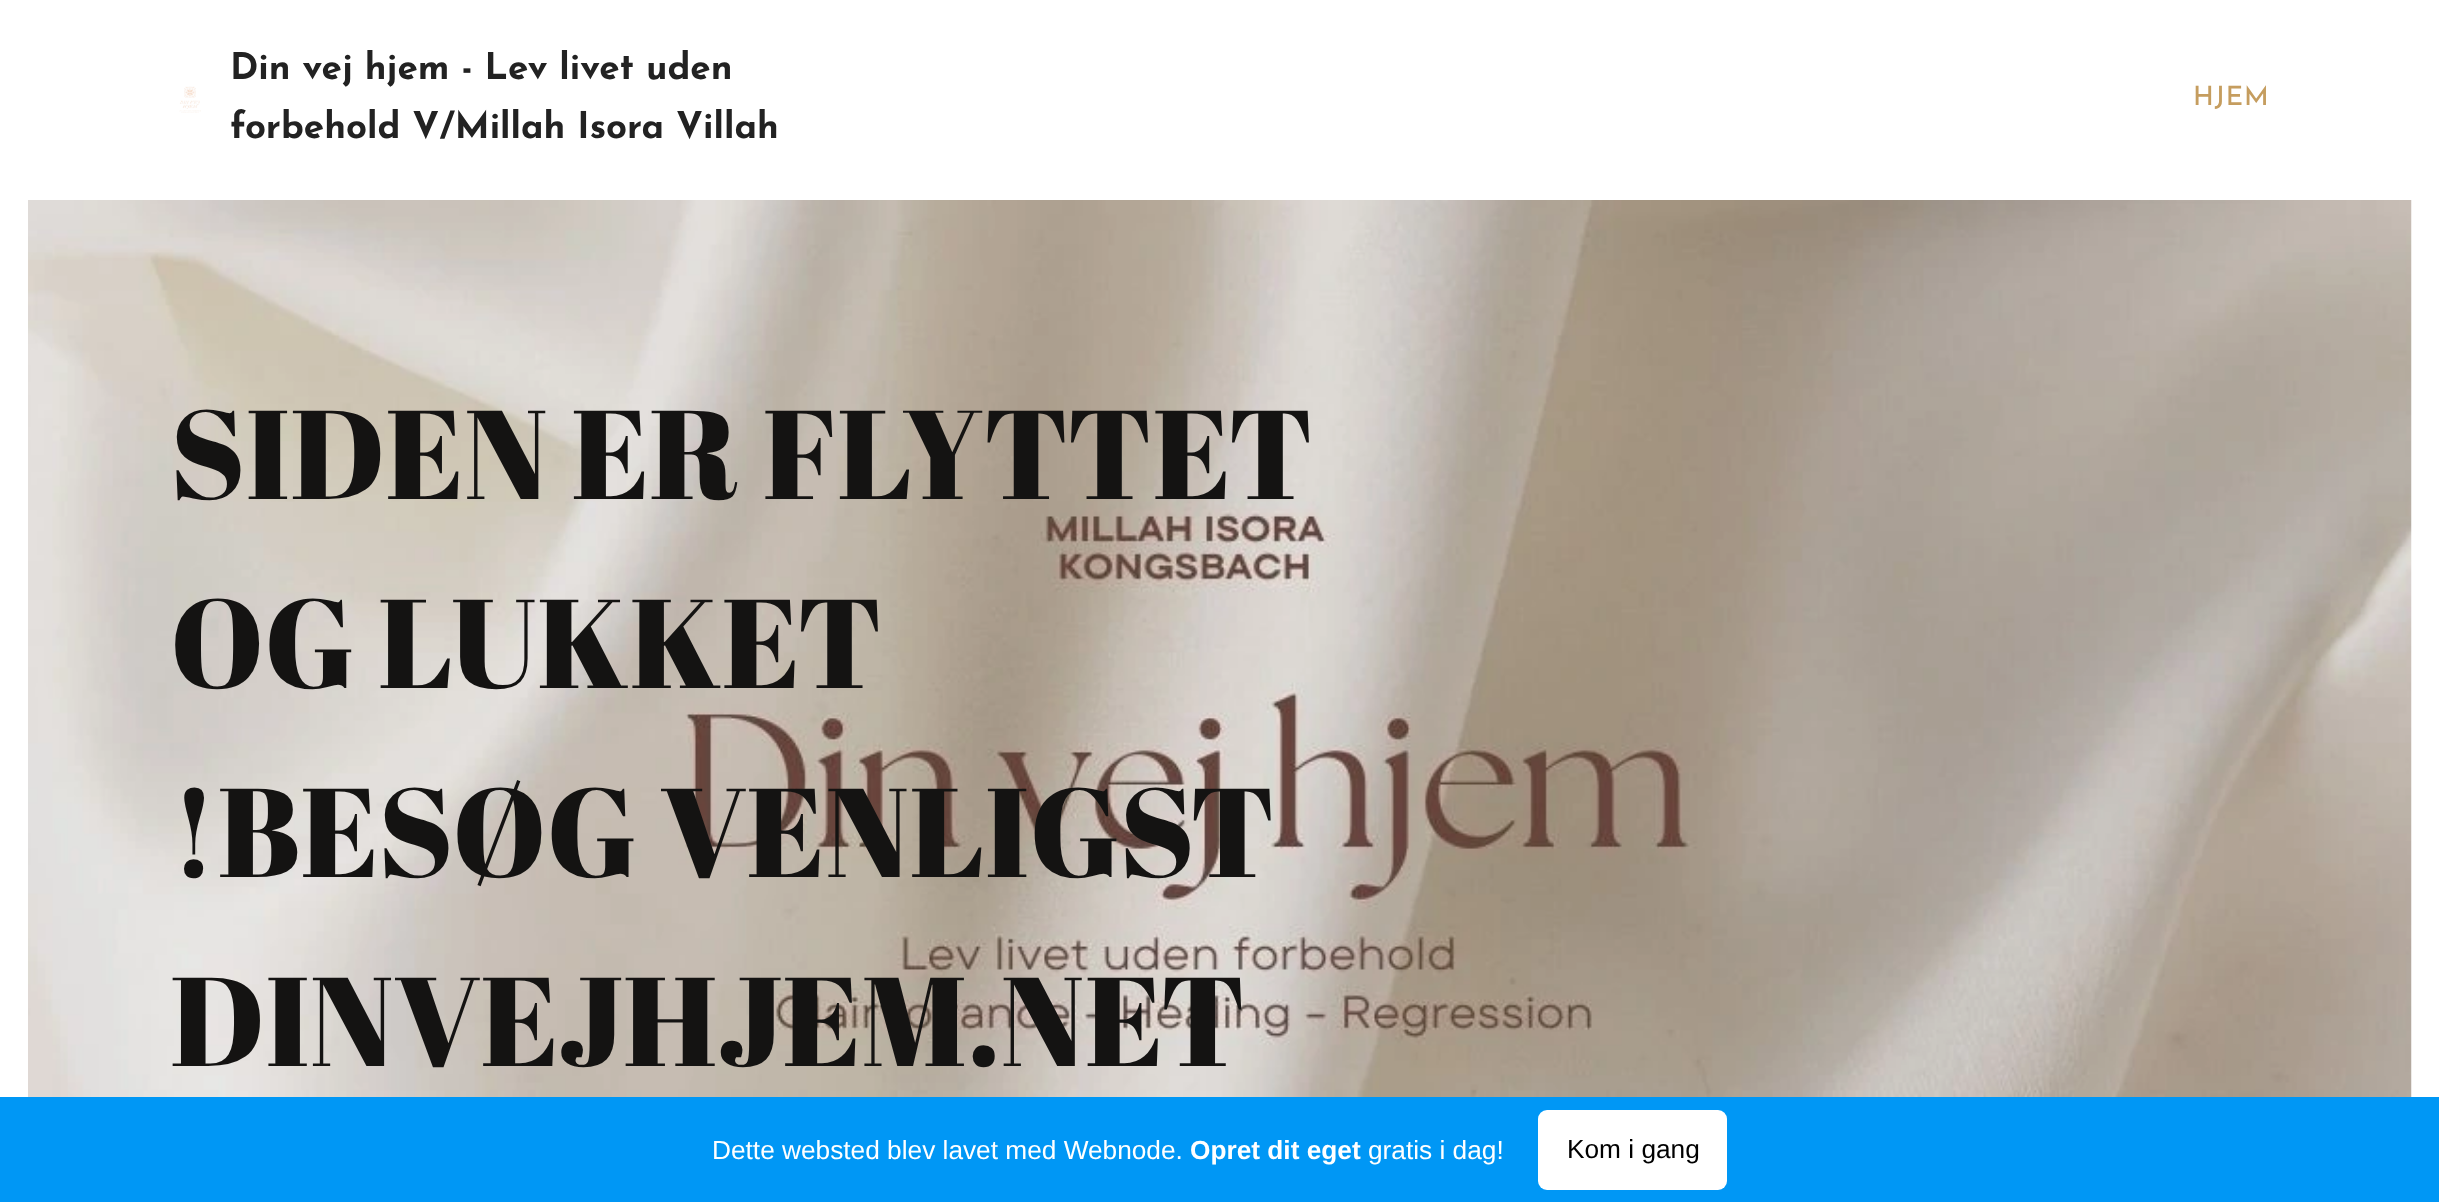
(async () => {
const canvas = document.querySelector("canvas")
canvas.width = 2439
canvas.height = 1202
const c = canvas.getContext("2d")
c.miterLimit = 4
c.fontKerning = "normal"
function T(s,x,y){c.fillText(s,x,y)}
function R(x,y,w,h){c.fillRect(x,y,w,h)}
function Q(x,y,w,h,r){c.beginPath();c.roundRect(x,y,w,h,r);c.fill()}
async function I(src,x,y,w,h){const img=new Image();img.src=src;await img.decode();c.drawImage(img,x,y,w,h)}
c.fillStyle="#fff"
R(0,0,2439,1202)
await I("1.png",179,86,22,27)
c.font="bold 36.75px Josefin Sans"
c.fillStyle="#222"
T("Din vej hjem - Lev livet uden",230,79)
T("forbehold V/Millah Isora Villah",230,138)
c.letterSpacing="1px"
c.font="500 26.5px Josefin Sans"
c.fillStyle="#c59d5f"
T("HJEM",2193,105)
await I("2.png",28,200,2384,897)
c.letterSpacing="0px"
c.font="126px Abril Fatface"
c.fillStyle="#141312"
T("SIDEN ER FLYTTET",170,499)
T("OG LUKKET",170,688)
T("!BESØG VENLIGST",170,877)
T("DINVEJHJEM.NET",170,1066)
c.fillStyle="#0097f5"
R(0,1097,2439,105)
c.font="26.25px Liberation Sans"
c.fillStyle="#fff"
T("Dette websted blev lavet med Webnode.",712,1159)
c.font="bold 26.25px Liberation Sans"
T("Opret dit eget",1190,1159)
c.font="26.25px Liberation Sans"
T("gratis i dag!",1368,1159)
Q(1538,1110,189,80,9)
c.fillStyle="#000"
T("Kom i gang",1567,1158)
})()
